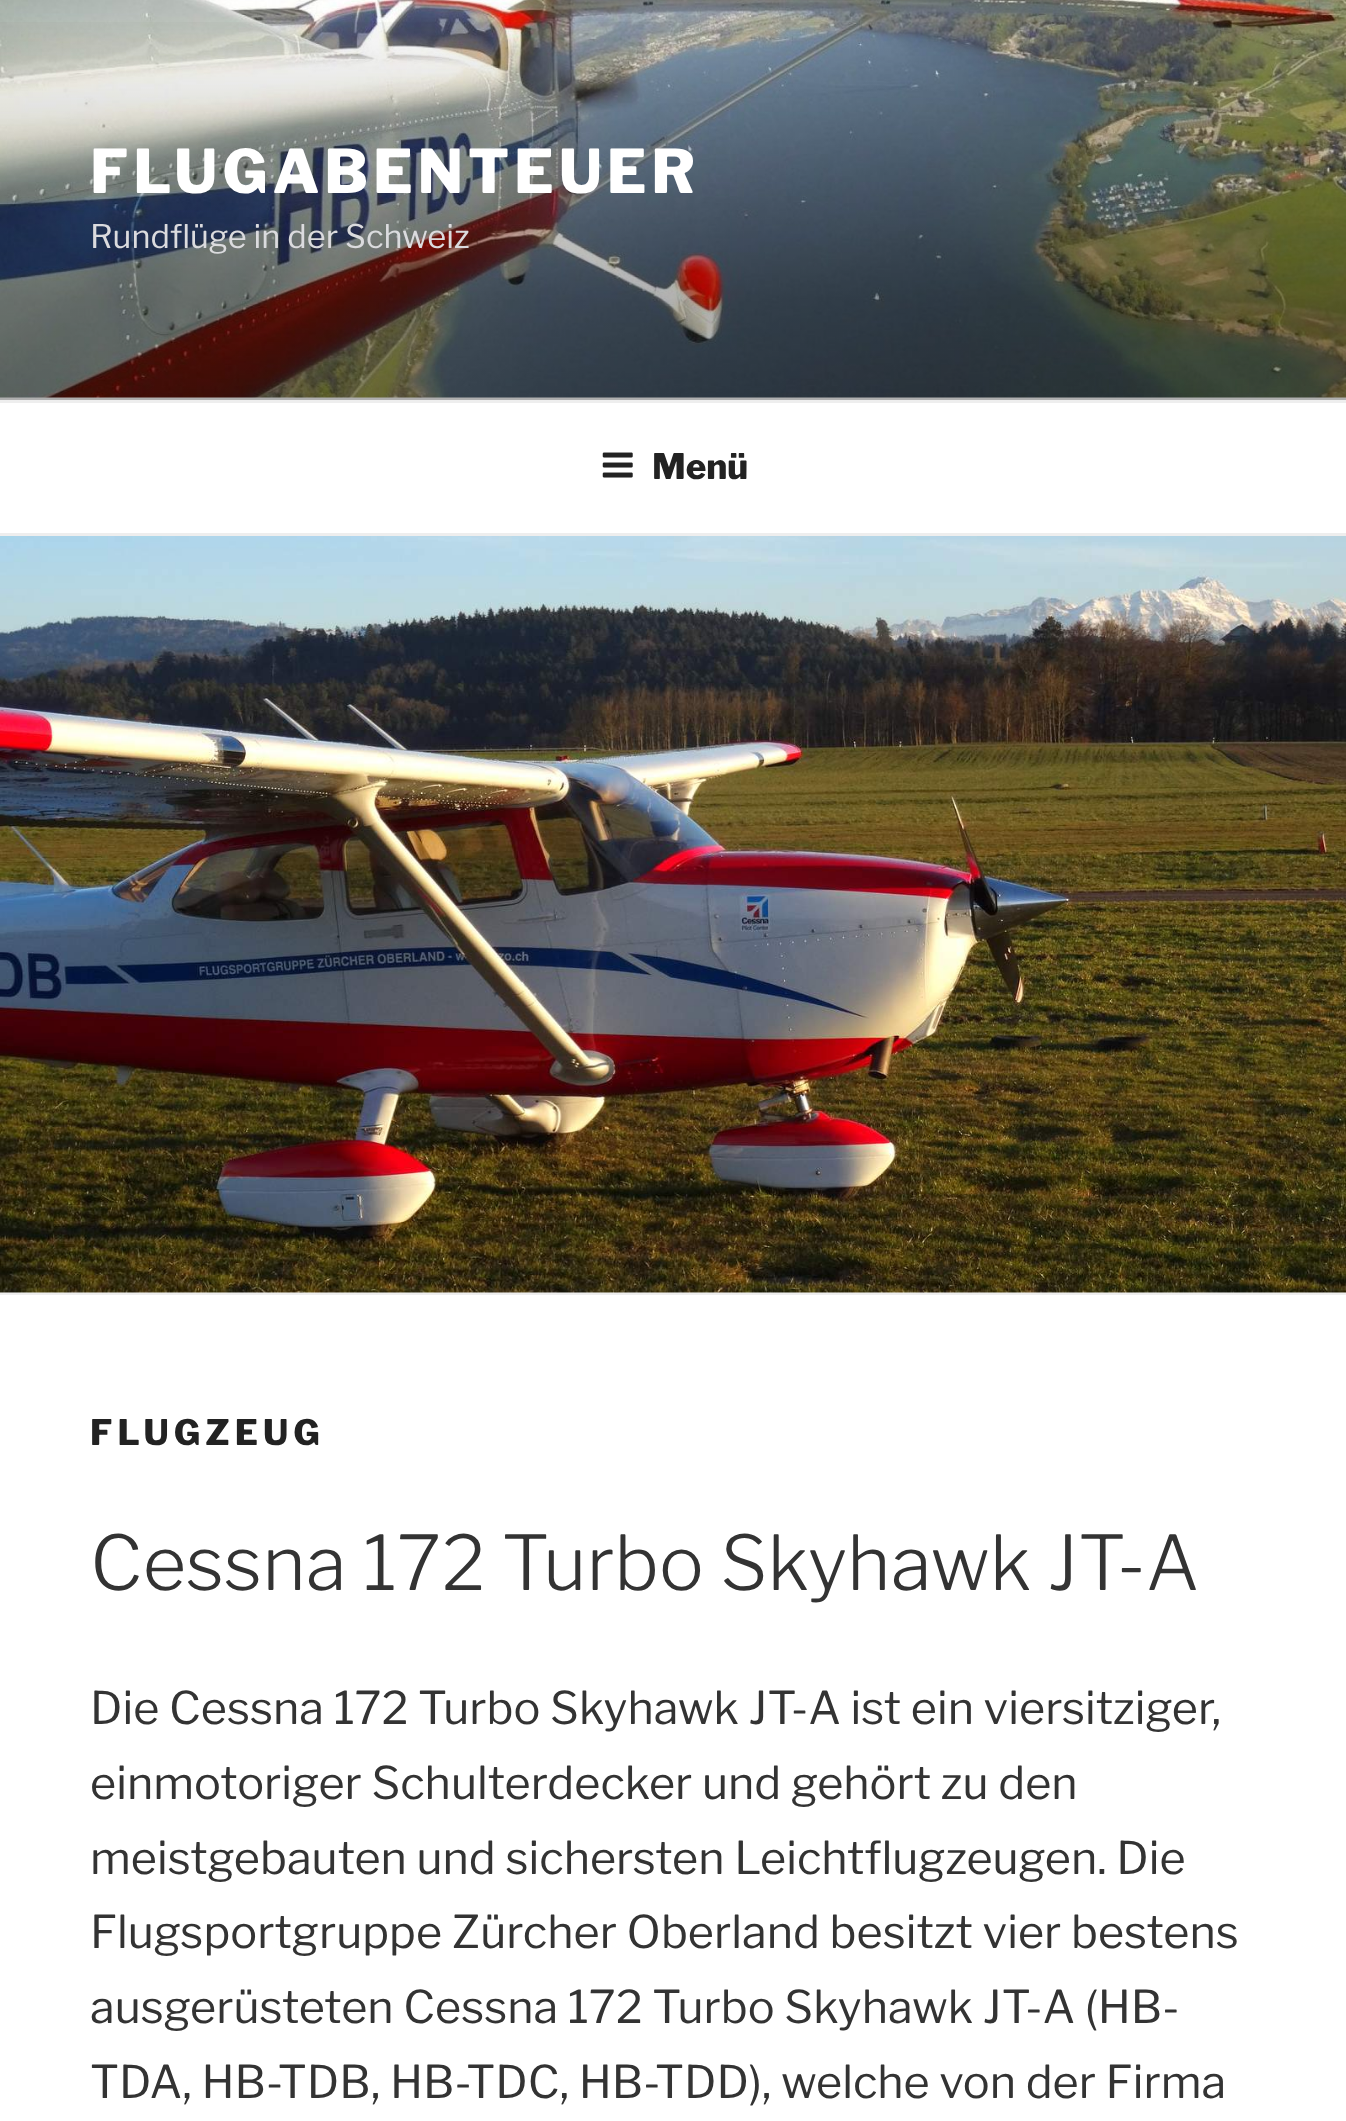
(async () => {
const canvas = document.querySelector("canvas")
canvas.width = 1346
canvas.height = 2121
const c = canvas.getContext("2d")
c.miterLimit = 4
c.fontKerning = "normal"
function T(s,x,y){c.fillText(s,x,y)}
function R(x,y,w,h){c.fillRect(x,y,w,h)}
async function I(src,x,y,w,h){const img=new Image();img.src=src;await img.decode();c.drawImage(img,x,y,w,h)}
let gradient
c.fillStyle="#fafafa"
R(0,0,1346,2121)
await I("1.png",0,0,1346,398)
gradient = c.createLinearGradient(674,0,674,400)
gradient.addColorStop(0,"#00000000")
gradient.addColorStop(.75,"#0000004d")
gradient.addColorStop(1,"#0000004d")
c.fillStyle = gradient
R(0,22,1346,378)
c.letterSpacing="4.75px"
c.font="100 60px Libre Franklin"
c.fillStyle="#fff"
T("FLUGABENTEUER",90,193)
c.letterSpacing="0px"
c.font="100 32.5px 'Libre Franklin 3'"
c.fillStyle="#dbdbde"
T("Rundflüge in der Schweiz",90,248)
c.fillStyle="#fff"
R(0,403,1346,130)
c.fillStyle="#eee"
R(0,400,1346,3)
R(0,533,1346,3)
await I("2.png",602,452,31,26)
c.font="100 35px Libre Franklin"
c.fillStyle="#222"
T("Menü",652,479)
c.fillStyle="#eee"
R(0,1293,1346,2)
await I("3.png",0,536,1346,757)
c.fillStyle="#fff"
R(0,1295,1346,826)
c.letterSpacing="5px"
c.fillStyle="#222"
T("FLUGZEUG",90,1445)
c.letterSpacing="0px"
c.font="100 75px 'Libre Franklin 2'"
c.fillStyle="#333"
T("Cessna 172 Turbo Skyhawk JT-A",90,1590)
c.font="100 45px 'Libre Franklin 3'"
T("Die Cessna 172 Turbo Skyhawk JT-A ist ein viersitziger,",90,1724)
T("einmotoriger Schulterdecker und gehört zu den",90,1799)
T("meistgebauten und sichersten Leichtflugzeugen. Die",90,1874)
T("Flugsportgruppe Zürcher Oberland besitzt vier bestens",90,1948)
T("ausgerüsteten Cessna 172 Turbo Skyhawk JT-A (HB-",90,2023)
T("TDA, HB-TDB, HB-TDC, HB-TDD), welche von der Firma",90,2098)
})()
